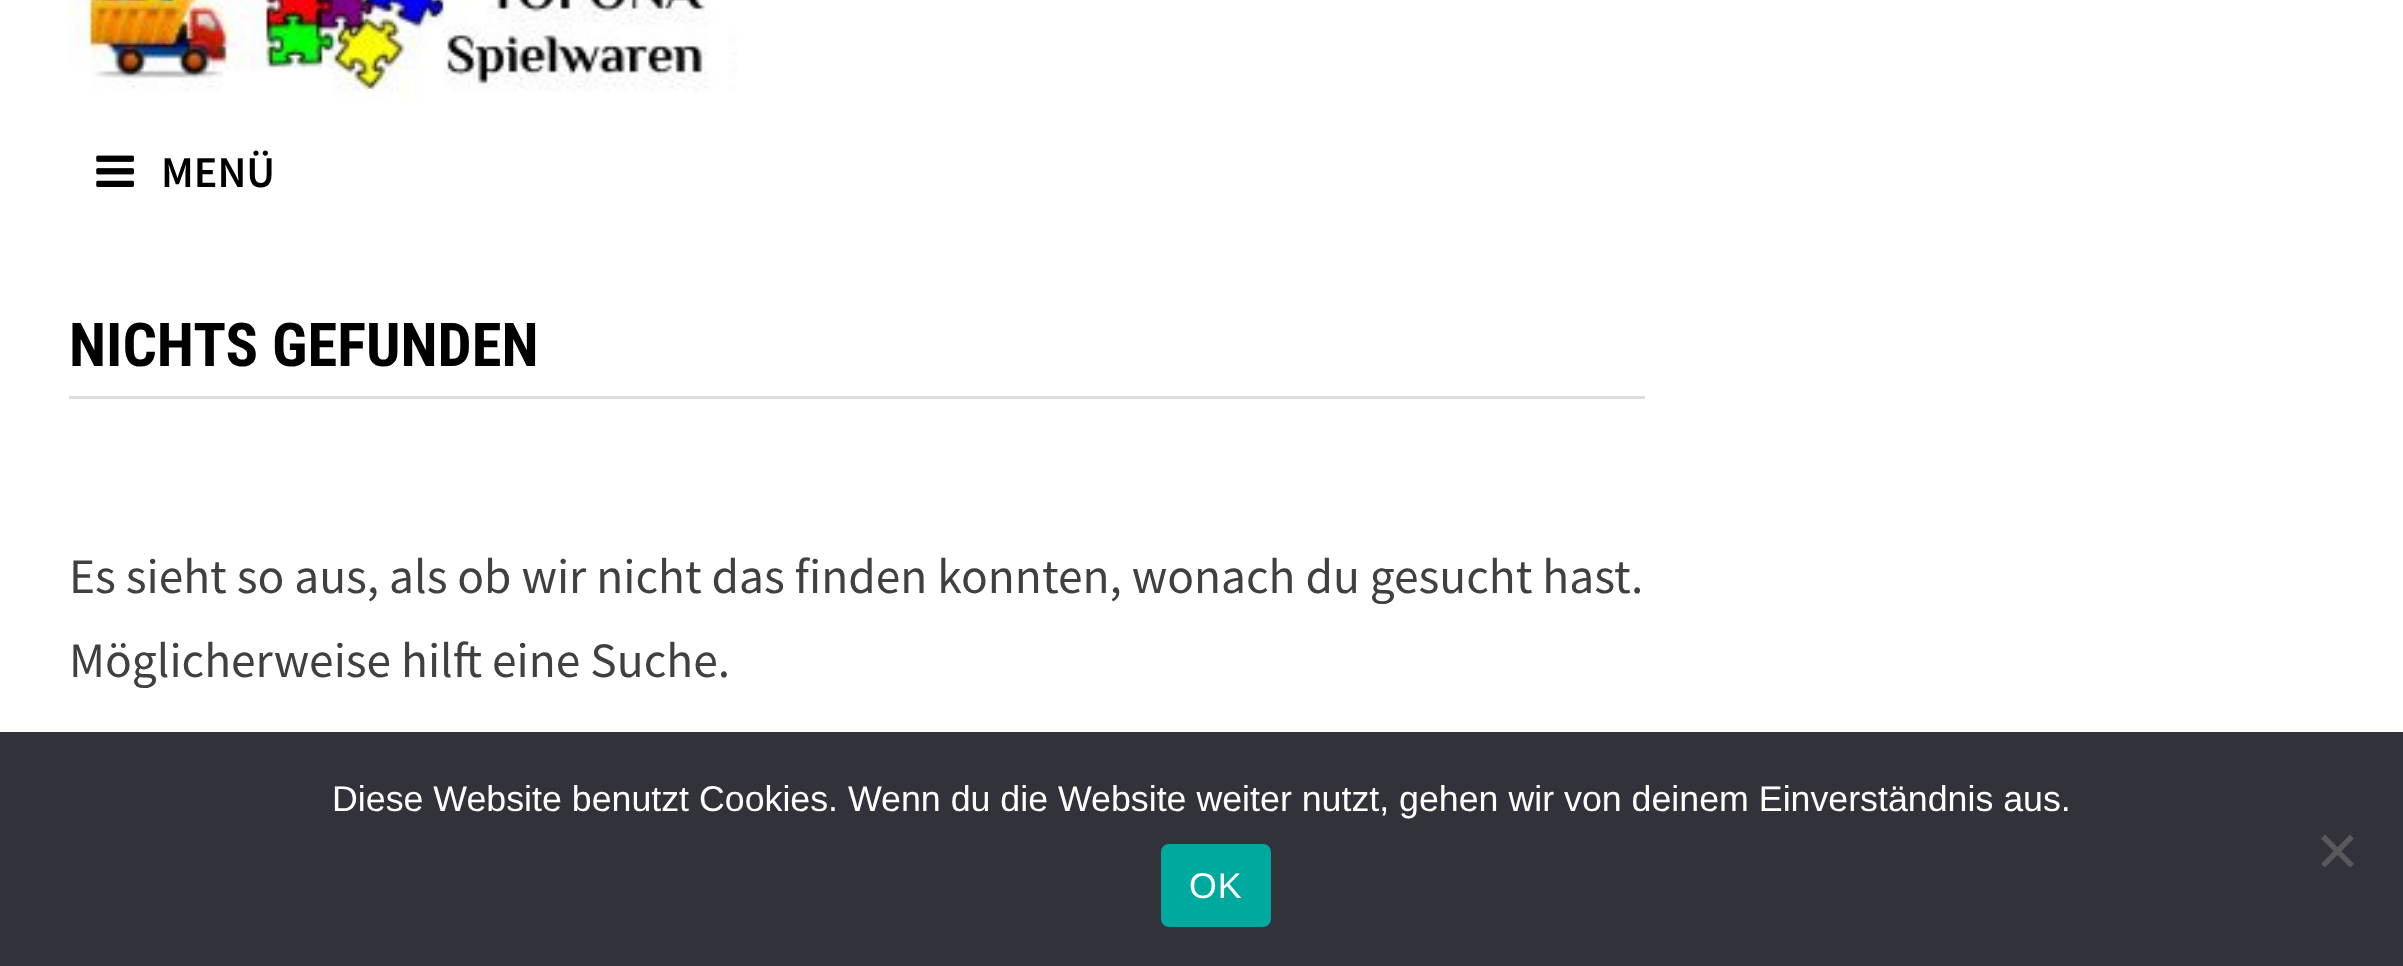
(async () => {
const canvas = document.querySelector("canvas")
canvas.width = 2403
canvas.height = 966
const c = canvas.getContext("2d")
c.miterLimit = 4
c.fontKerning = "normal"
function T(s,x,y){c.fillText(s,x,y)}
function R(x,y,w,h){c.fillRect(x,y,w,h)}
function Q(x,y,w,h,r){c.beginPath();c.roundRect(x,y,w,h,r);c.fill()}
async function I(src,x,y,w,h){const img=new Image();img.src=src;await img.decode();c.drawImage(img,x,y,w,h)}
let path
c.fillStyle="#fff"
R(0,0,2403,966)
await I("1.png",68,0,669,100)
await I("2.png",96,155,38,32)
c.font="600 44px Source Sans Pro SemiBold"
c.fillStyle="#000"
T("MENÜ",161,187)
c.fillStyle="#ddd"
R(69,396,1576,3)
c.font="bold 60.5px Roboto Condensed"
c.fillStyle="#000"
T("NICHTS GEFUNDEN",69,366)
c.font="49.5px Source Sans Pro"
c.fillStyle="#404040"
T("Es sieht so aus, als ob wir nicht das finden konnten, wonach du gesucht hast.",69,593)
T("Möglicherweise hilft eine Suche.",69,677)
c.fillStyle="#32323a"
R(0,732,2403,234)
c.font="35.75px Liberation Sans"
c.fillStyle="#fff"
T("Diese Website benutzt Cookies. Wenn du die Website weiter nutzt, gehen wir von deinem Einverständnis aus.",332,811)
c.fillStyle="#59595d"
path = new Path2D("M2350 834.5l4 4l-29 29l-4-3.5z")
c.fill(path)
path = new Path2D("M2321 838.5l4-4l29 29.5l-4 3.5z")
c.fill(path)
c.fillStyle="#00a99d"
Q(1161,844,110,83,8)
c.letterSpacing="1px"
c.fillStyle="#fff"
T("OK",1189,898)
})()
